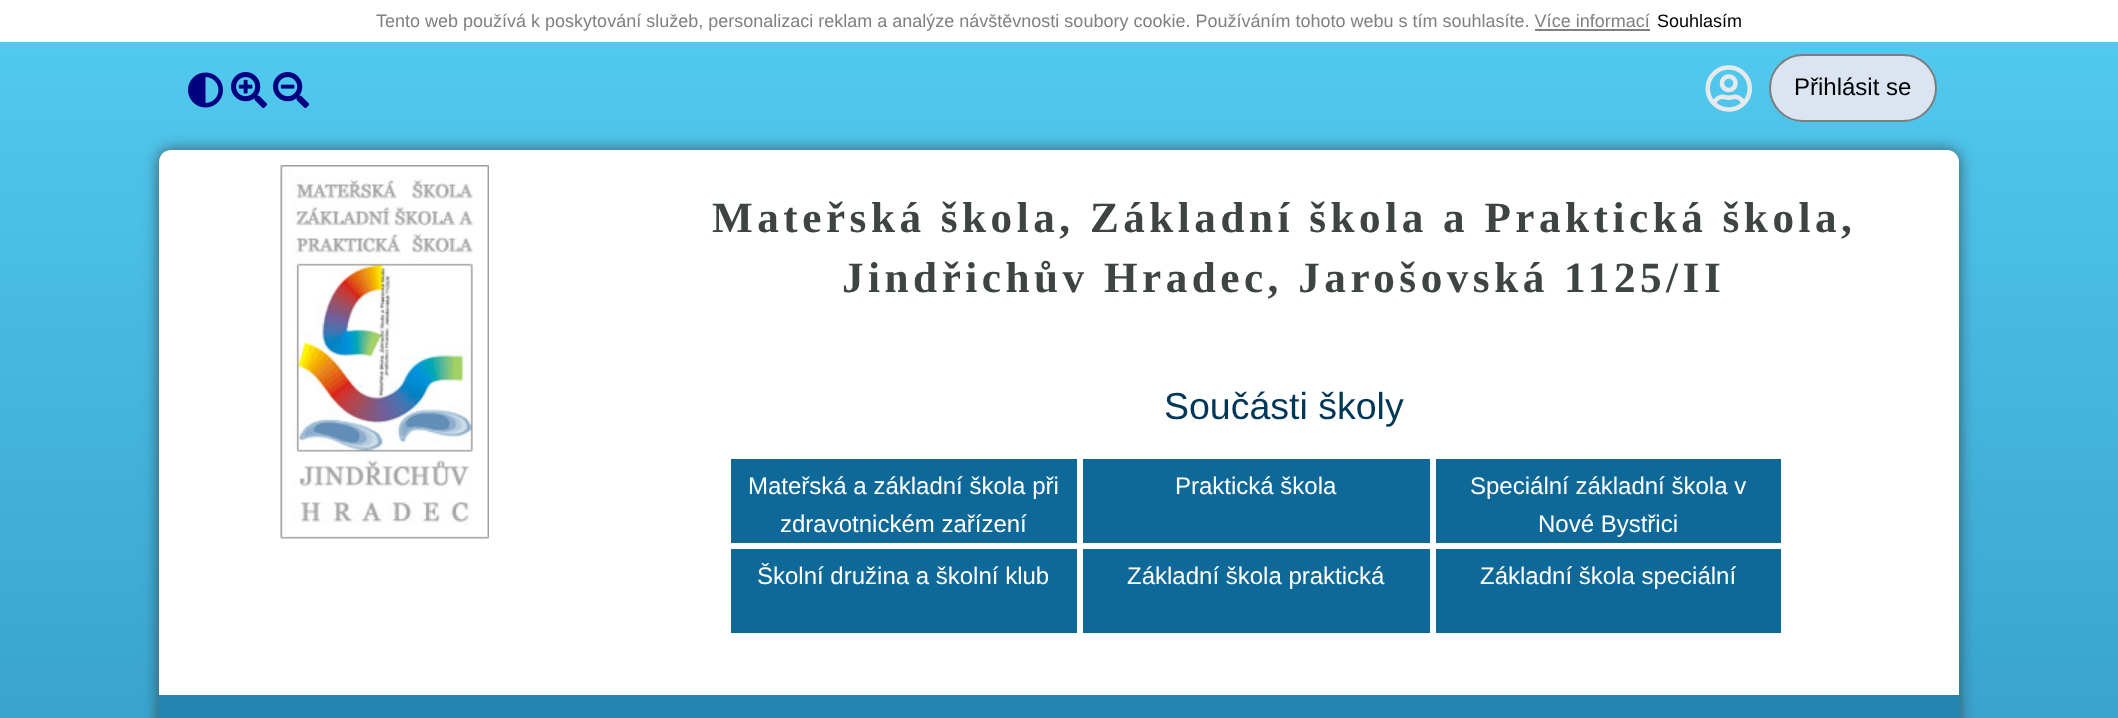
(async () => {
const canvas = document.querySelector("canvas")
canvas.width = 2118
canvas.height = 718
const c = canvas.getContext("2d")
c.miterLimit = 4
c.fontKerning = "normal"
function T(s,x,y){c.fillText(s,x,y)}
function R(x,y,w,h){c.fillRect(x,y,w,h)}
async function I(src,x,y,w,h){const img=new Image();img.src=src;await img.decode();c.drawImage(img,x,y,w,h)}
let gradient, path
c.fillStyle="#fff"
R(0,0,2118,718)
gradient = c.createLinearGradient(1059,0,1059,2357)
gradient.addColorStop(0,"#6ab2e4")
gradient.addColorStop(0,"#53cbf1")
gradient.addColorStop(.78,"#106798")
c.fillStyle = gradient
R(0,42,2118,676)
c.font="18px Liberation Sans"
c.fillStyle="#808080"
T("Tento web používá k poskytování služeb, personalizaci reklam a analýze návštěvnosti soubory cookie. Používáním tohoto webu s tím souhlasíte. Více informací",376,27)
R(1535,29,115,2)
c.fillStyle="#000"
T("Souhlasím",1657,27)
await I("1.png",188,72,35,36)
await I("2.png",231,72,36,36)
await I("3.png",273,72,36,36)
await I("4.png",1705,65,47,47)
c.fillStyle="#dbe4f0"
c.beginPath()
c.roundRect(1770,55,166,66,33)
c.fill()
c.strokeStyle="#7d7d7d"
c.lineWidth=2
c.stroke()
c.font="24px Liberation Sans"
c.fillStyle="#000"
T("Přihlásit se",1794,95)
c.fillStyle="#323232bf"
c.filter="blur(7.5px)"
c.beginPath()
c.roundRect(159,150,1800,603,12)
c.fill()
c.filter="none"
c.fillStyle="#fff"
path = new Path2D("M171 150h1776c6.5 0 12 5.5 12 12v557h-1800v-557c0-6.5 5.5-12 12-12z")
c.fill(path)
c.fillStyle="#2285b2"
R(159,695,1800,23)
await I("5.png",280,165,209,374)
c.letterSpacing="4.5px"
c.font="bold 43.2px Liberation Serif"
c.fillStyle="#3d4443"
T("Mateřská škola, Základní škola a Praktická škola,",712,232)
T("Jindřichův Hradec, Jarošovská 1125/II",842,292)
c.letterSpacing="0px"
c.font="37.5px Liberation Sans"
c.fillStyle="#003757"
T("Součásti školy",1164,419)
c.fillStyle="#0e6998"
R(731,459,346,84)
c.font="24px Liberation Sans"
c.fillStyle="#fff"
T("Mateřská a základní škola při",748,494)
T("zdravotnickém zařízení",780,532)
c.fillStyle="#0e6998"
R(1083,459,347,84)
c.fillStyle="#fff"
T("Praktická škola",1175,494)
c.fillStyle="#0e6998"
R(1436,459,345,84)
c.fillStyle="#fff"
T("Speciální základní škola v",1470,494)
T("Nové Bystřici",1538,532)
c.fillStyle="#0e6998"
R(731,549,346,84)
c.fillStyle="#fff"
T("Školní družina a školní klub",757,584)
c.fillStyle="#0e6998"
R(1083,549,347,84)
c.fillStyle="#fff"
T("Základní škola praktická",1127,584)
c.fillStyle="#0e6998"
R(1436,549,345,84)
c.fillStyle="#fff"
T("Základní škola speciální",1480,584)
})()
